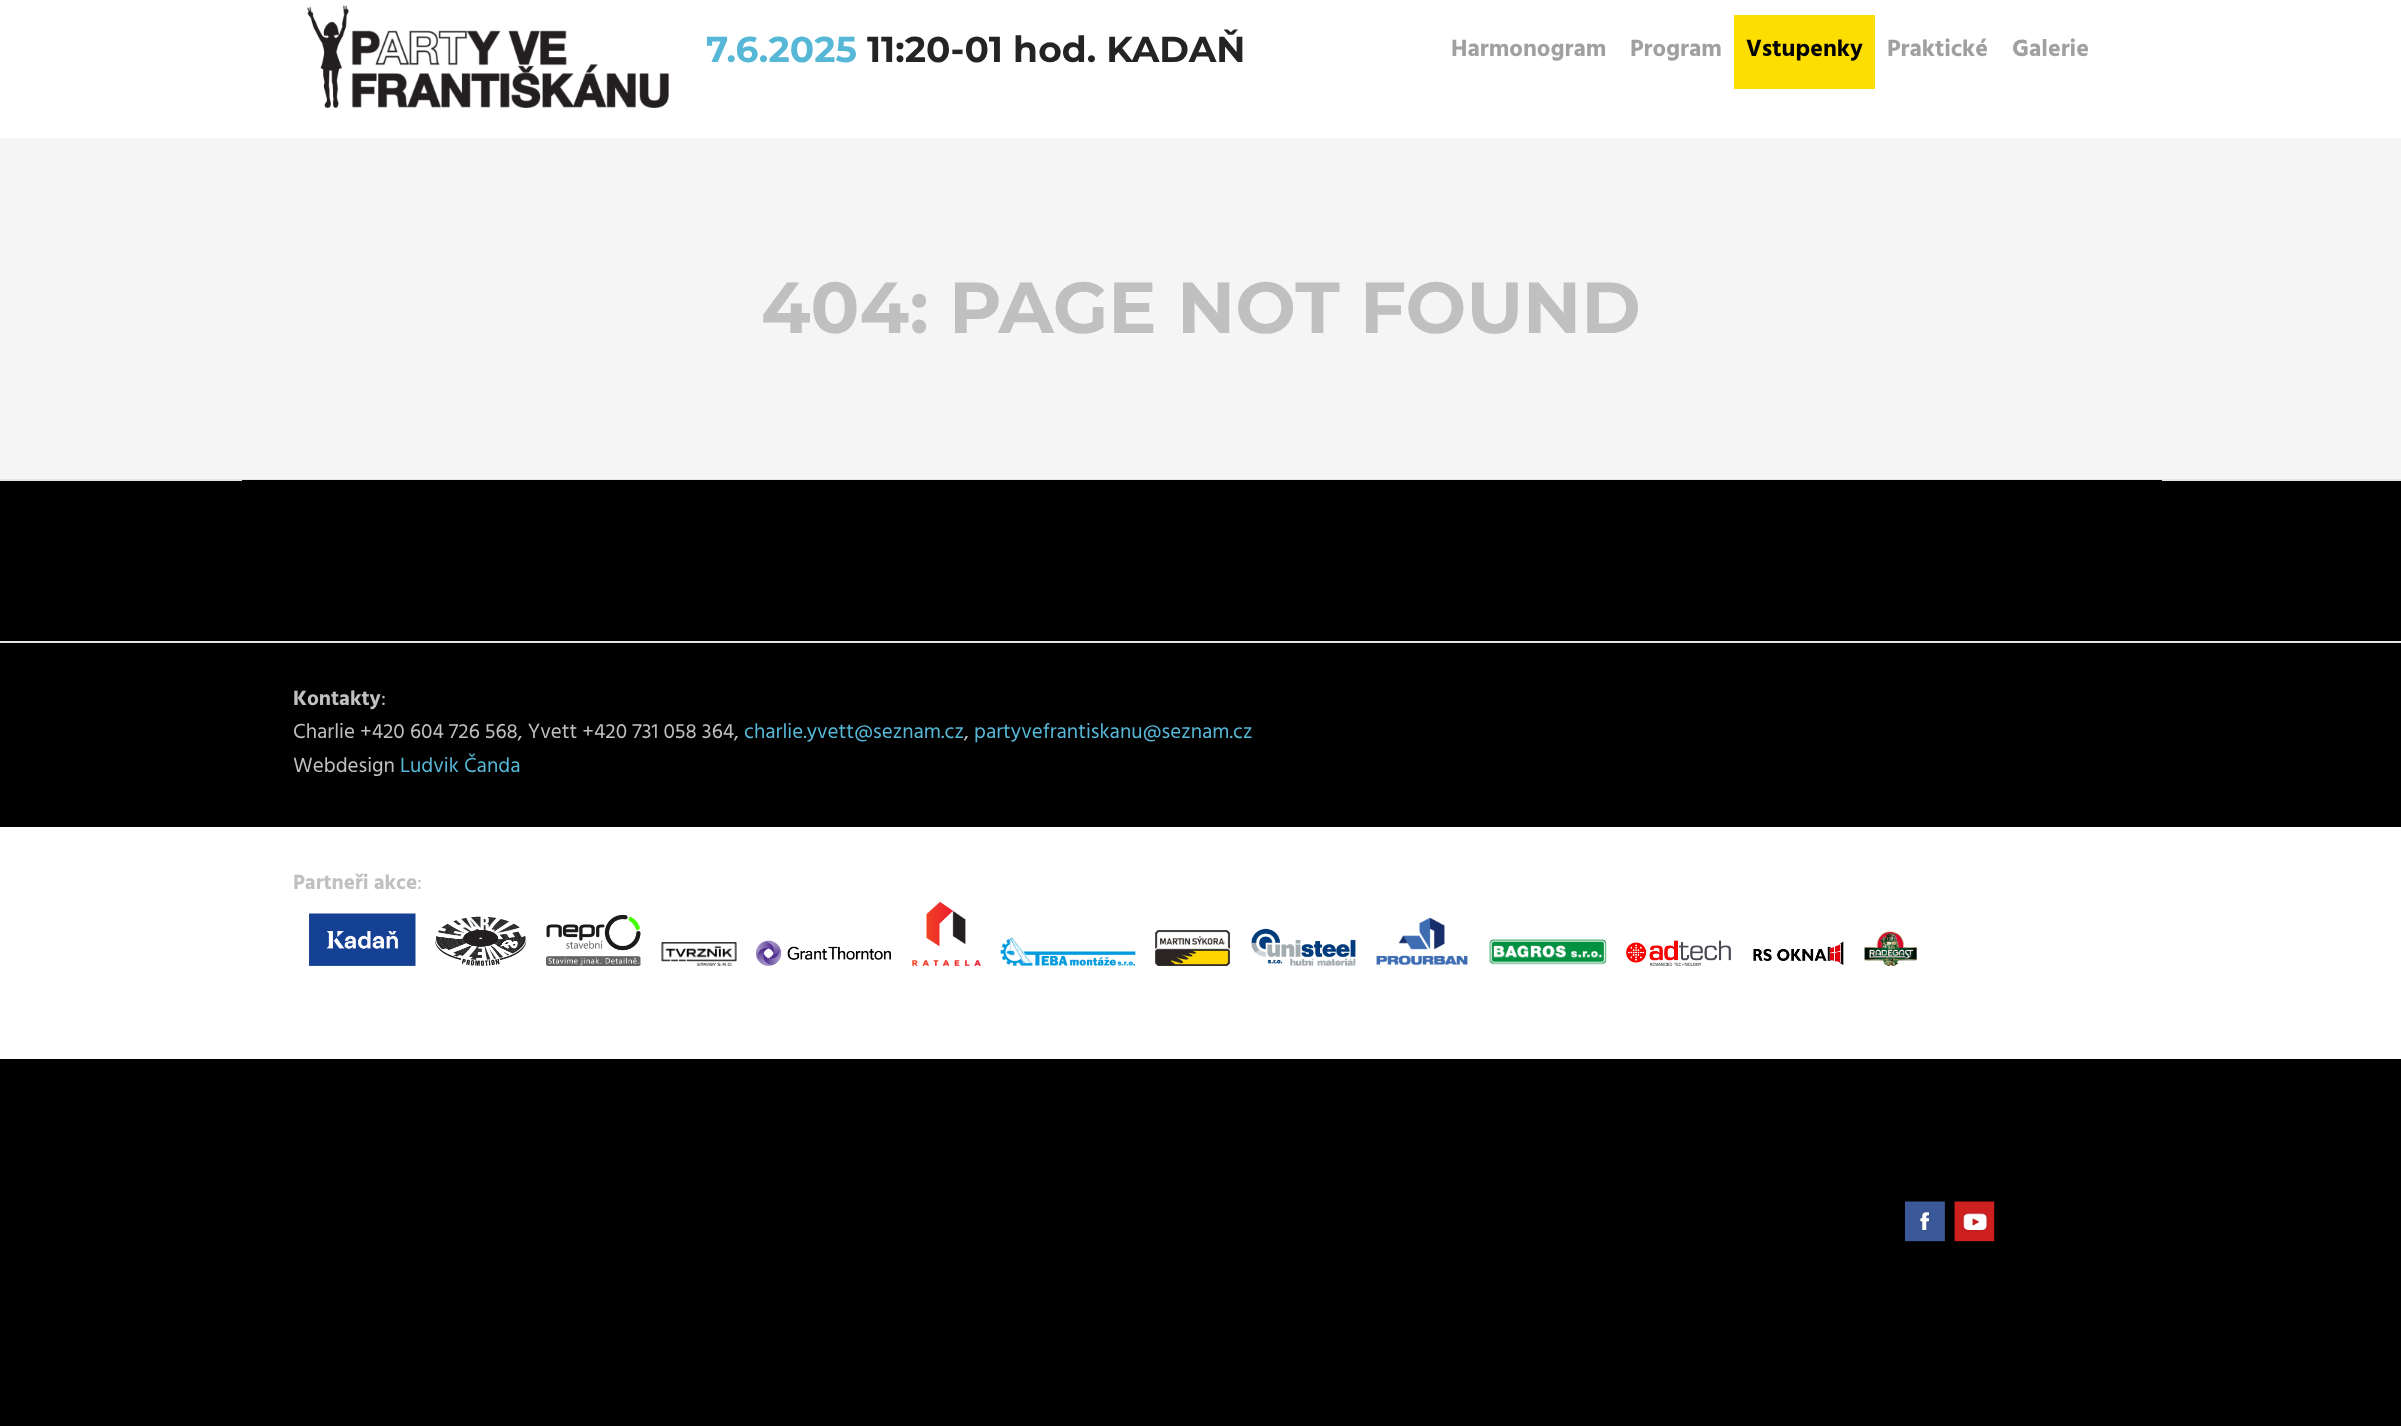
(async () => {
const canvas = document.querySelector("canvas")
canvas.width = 2401
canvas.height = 1426
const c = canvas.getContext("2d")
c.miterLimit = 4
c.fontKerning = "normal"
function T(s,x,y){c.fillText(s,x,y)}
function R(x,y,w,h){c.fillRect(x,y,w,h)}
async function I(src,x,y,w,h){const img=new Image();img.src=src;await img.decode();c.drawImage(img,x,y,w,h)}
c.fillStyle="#000"
R(0,0,2401,1426)
c.fillStyle="#fff"
R(0,0,2401,138)
await I("1.png",307,5,362,103)
c.font="bold 36px Montserrat"
c.fillStyle="#57b7d7"
T("7.6.2025",706,62)
c.fillStyle="#242424"
T("11:20-01 hod. KADAŇ",867,62)
c.font="bold 24px Hind"
c.fillStyle="#a0a0a0"
T("Harmonogram",1451,56)
T("Program",1630,56)
c.fillStyle="#fede00"
R(1734,15,141,74)
c.fillStyle="#000"
T("Vstupenky",1746,56)
c.fillStyle="#a0a0a0"
T("Praktické",1887,56)
T("Galerie",2012,56)
c.fillStyle="#f5f5f5"
R(0,138,2401,341)
c.fillStyle="#e5e5e5"
R(0,479,2401,2)
c.font="bold 72px Montserrat"
c.fillStyle="#c0c0c0"
T("404: PAGE NOT FOUND",761,333)
c.fillStyle="#000"
R(242,480,1920,1)
c.fillStyle="#e5e5e5"
R(0,641,2401,2)
c.font="bold 21px Hind"
c.fillStyle="#c0c0c0"
T("Kontakty",293,705)
c.font="21px Hind"
T(":",381,705)
T("Charlie +420 604 726 568, Yvett +420 731 058 364,",293,738)
c.fillStyle="#57b7d7"
T("charlie.yvett@seznam.cz",744,738)
c.fillStyle="#c0c0c0"
T(",",964,738)
c.fillStyle="#57b7d7"
T("partyvefrantiskanu@seznam.cz",974,738)
c.fillStyle="#c0c0c0"
T("Webdesign",293,772)
c.fillStyle="#57b7d7"
T("Ludvik Čanda",400,772)
c.fillStyle="#fff"
R(0,827,2401,232)
c.font="bold 21px Hind"
c.fillStyle="#c0c0c0"
T("Partneři akce",293,889)
c.font="21px Hind"
T(":",417,889)
await I("2.png",309,913,107,53)
await I("3.png",435,916,92,50)
await I("4.png",546,915,95,51)
await I("5.png",661,942,76,24)
await I("6.png",756,940,135,26)
await I("7.png",912,901,69,65)
await I("8.png",1000,937,136,29)
await I("9.png",1155,930,75,36)
await I("10.png",1251,928,105,38)
await I("11.png",1376,917,92,49)
await I("12.png",1489,939,118,26)
await I("13.png",1626,940,105,26)
await I("14.png",1753,941,91,24)
await I("15.png",1864,931,53,35)
await I("16.png",1905,1201,40,41)
await I("17.png",1954,1201,41,41)
})()
